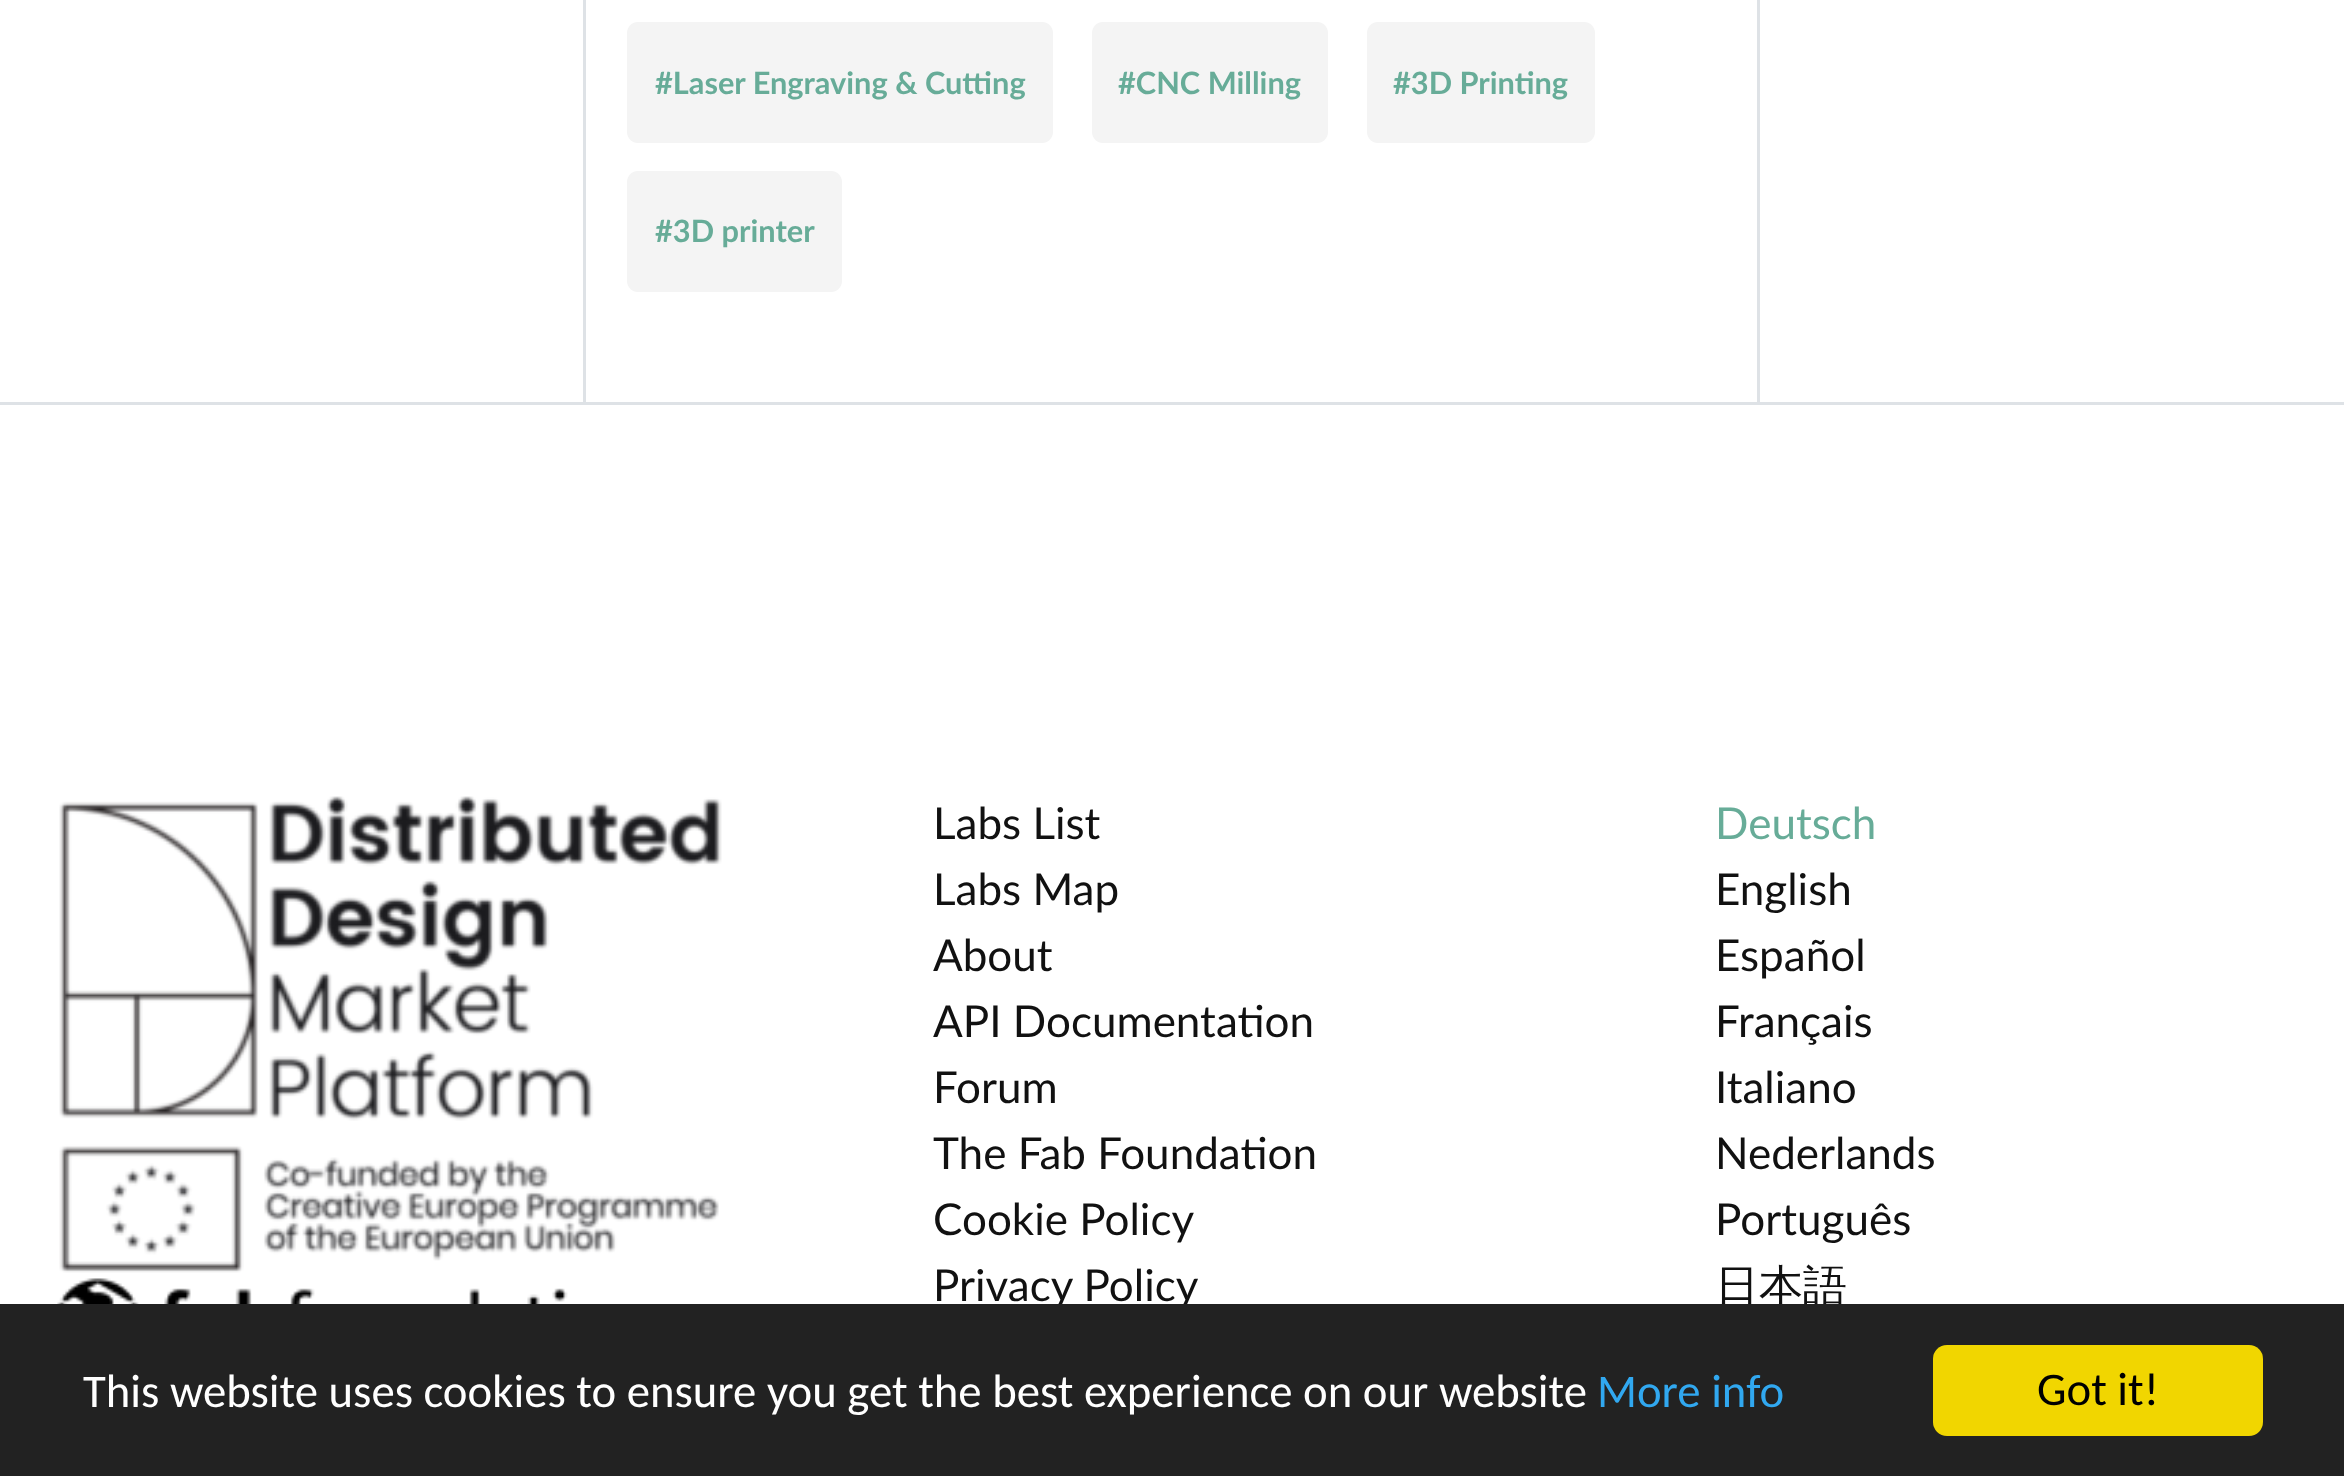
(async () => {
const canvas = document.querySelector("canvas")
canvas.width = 2344
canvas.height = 1476
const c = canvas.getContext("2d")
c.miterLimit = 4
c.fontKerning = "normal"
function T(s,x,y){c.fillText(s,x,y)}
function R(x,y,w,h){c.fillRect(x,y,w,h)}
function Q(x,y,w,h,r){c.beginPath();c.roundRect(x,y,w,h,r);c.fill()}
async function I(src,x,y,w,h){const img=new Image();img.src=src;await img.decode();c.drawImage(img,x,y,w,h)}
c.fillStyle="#fff"
R(0,0,2344,1476)
c.fillStyle="#dee2e6"
R(0,402,2344,3)
R(583,0,3,402)
R(1757,0,3,402)
c.fillStyle="#f4f4f4"
Q(627,22,426,121,11)
c.font="bold 30.75px Lato"
c.fillStyle="#67ac98"
T("#Laser Engraving & Cutting",655,94)
c.fillStyle="#f4f4f4"
Q(1092,22,236,121,11)
c.fillStyle="#67ac98"
T("#CNC Milling",1118,94)
c.fillStyle="#f4f4f4"
Q(1367,22,228,121,11)
c.fillStyle="#67ac98"
T("#3D Printing",1393,94)
c.fillStyle="#f4f4f4"
Q(627,171,215,121,11)
c.fillStyle="#67ac98"
T("#3D printer",655,242)
await I("1.png",59,796,663,477)
await I("2.png",57,1278,511,26)
c.font="44px Lato"
c.fillStyle="#111"
T("Labs List",933,839)
T("Labs Map",933,905)
T("About",933,971)
T("API Documentation",933,1037)
T("Forum",933,1103)
T("The Fab Foundation",933,1169)
T("Cookie Policy",933,1235)
T("Privacy Policy",933,1301)
c.fillStyle="#67ac98"
T("Deutsch",1715,839)
c.fillStyle="#111"
T("English",1715,905)
T("Español",1715,971)
T("Français",1715,1037)
T("Italiano",1715,1103)
T("Nederlands",1715,1169)
T("Português",1715,1235)
c.font="500 44px WenQuanYi Zen Hei"
T("日本語",1715,1301)
c.fillStyle="#222"
R(0,1304,2344,172)
c.font="46.75px Carlito"
c.fillStyle="#fff"
T("This website uses cookies to ensure you get the best experience on our website",83,1407)
c.fillStyle="#31a8f0"
T("More info",1597,1407)
c.fillStyle="#f1d600"
Q(1933,1345,330,91,14)
c.fillStyle="#000"
T("Got it!",2037,1405)
})()
